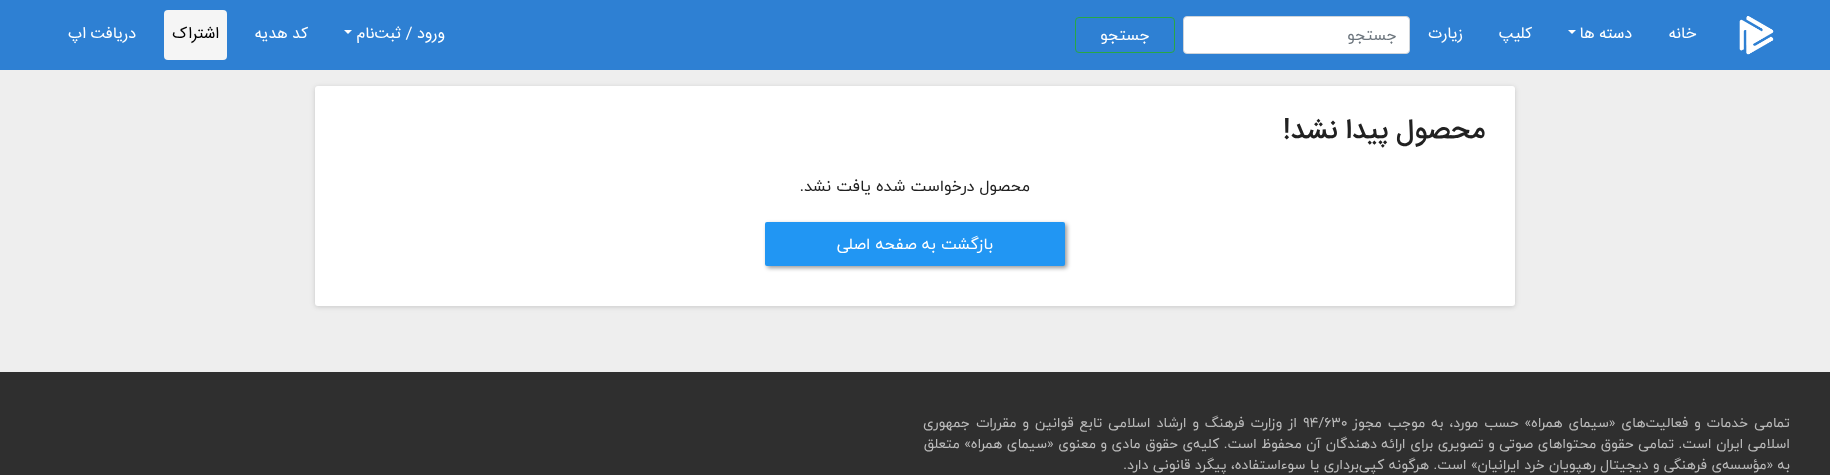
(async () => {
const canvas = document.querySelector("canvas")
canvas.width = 1830
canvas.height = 475
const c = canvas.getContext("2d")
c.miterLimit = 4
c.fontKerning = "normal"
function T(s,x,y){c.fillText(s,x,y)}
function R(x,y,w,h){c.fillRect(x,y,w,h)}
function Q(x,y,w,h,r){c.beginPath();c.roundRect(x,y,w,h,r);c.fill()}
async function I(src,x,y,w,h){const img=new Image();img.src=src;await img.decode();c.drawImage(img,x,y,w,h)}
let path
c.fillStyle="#eee"
R(0,0,1830,475)
c.fillStyle="#2e80d3"
R(0,0,1830,70)
await I("1.png",1739,16,35,39)
c.direction="rtl"
c.font="16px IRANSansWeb"
c.fillStyle="#fff"
T("خانه",1696,38)
T("دسته ها",1632,38)
path = new Path2D("M1568 30h8l-4 4z")
c.fill(path)
T("کلیپ",1532,38)
T("زیارت",1463,38)
c.beginPath()
c.roundRect(1183.5,16.5,226,37,3.5)
c.fill()
c.strokeStyle="#ced4da"
c.stroke()
c.font="16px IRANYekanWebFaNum"
c.fillStyle="#6c757d"
T("جستجو",1397,40)
c.beginPath()
c.roundRect(1075.5,17.5,99,35,3.5)
c.strokeStyle="#28a745"
c.stroke()
c.fillStyle="#fff"
T("جستجو",1150,40)
c.font="16px IRANSansWeb"
T("ورود / ثبت‌نام",445,38)
path = new Path2D("M344 30h8l-4 4z")
c.fill(path)
T("کد هدیه",308,38)
c.fillStyle="#f5f5f5"
Q(164,10,63,50,4)
c.fillStyle="#000"
T("اشتراک",219,38)
c.fillStyle="#fff"
T("دریافت اپ",136,38)
c.fillStyle="#0000001a"
c.filter="blur(2px)"
c.beginPath()
c.roundRect(315,87,1200,220,3)
c.fill()
c.filter="none"
c.fillStyle="#0000000d"
c.filter="blur(3px)"
c.beginPath()
c.roundRect(315,87,1200,220,3)
c.fill()
c.filter="none"
c.fillStyle="#fff"
Q(315,86,1200,220,3)
c.font="500 28px IRANSansWeb"
c.fillStyle="#212121"
T("محصول پیدا نشد!",1485,138)
c.font="16px IRANYekanWebFaNum"
T("محصول درخواست شده یافت نشد.",1030,191)
c.fillStyle="#00000066"
c.filter="blur(2px)"
c.beginPath()
c.roundRect(767,224,300,44,2)
c.fill()
c.filter="none"
c.fillStyle="#2196f3"
Q(765,222,300,44,2)
c.fillStyle="#fff"
T("بازگشت به صفحه اصلی",993,249)
c.fillStyle="#2f2f2f"
R(0,372,1830,103)
c.wordSpacing="1.5px"
c.font="14px IRANYekanWebFaNum"
c.fillStyle="#bbb"
T("تمامی خدمات و فعالیت‌های «سیمای همراه» حسب مورد، به موجب مجوز",1790,427)
c.wordSpacing="0px"
c.direction="ltr"
T("۹۴/۶۳۰",1303,427)
c.wordSpacing="1.5px"
c.direction="rtl"
T("از وزارت فرهنگ و ارشاد اسلامی تابع قوانین و مقررات جمهوری",1297,427)
c.wordSpacing="0.1px"
T("اسلامی ایران است. تمامی حقوق محتواهای صوتی و تصویری برای ارائه دهندگان آن محفوظ است. کلیه‌ی حقوق مادی و معنوی «سیمای همراه» متعلق",1790,448)
c.wordSpacing="0px"
T("به «مؤسسه‌ی فرهنگی و دیجیتال رهپویان خرد ایرانیان» است. هرگونه کپی‌برداری یا سوءاستفاده، پیگرد قانونی دارد.",1790,469)
})()
